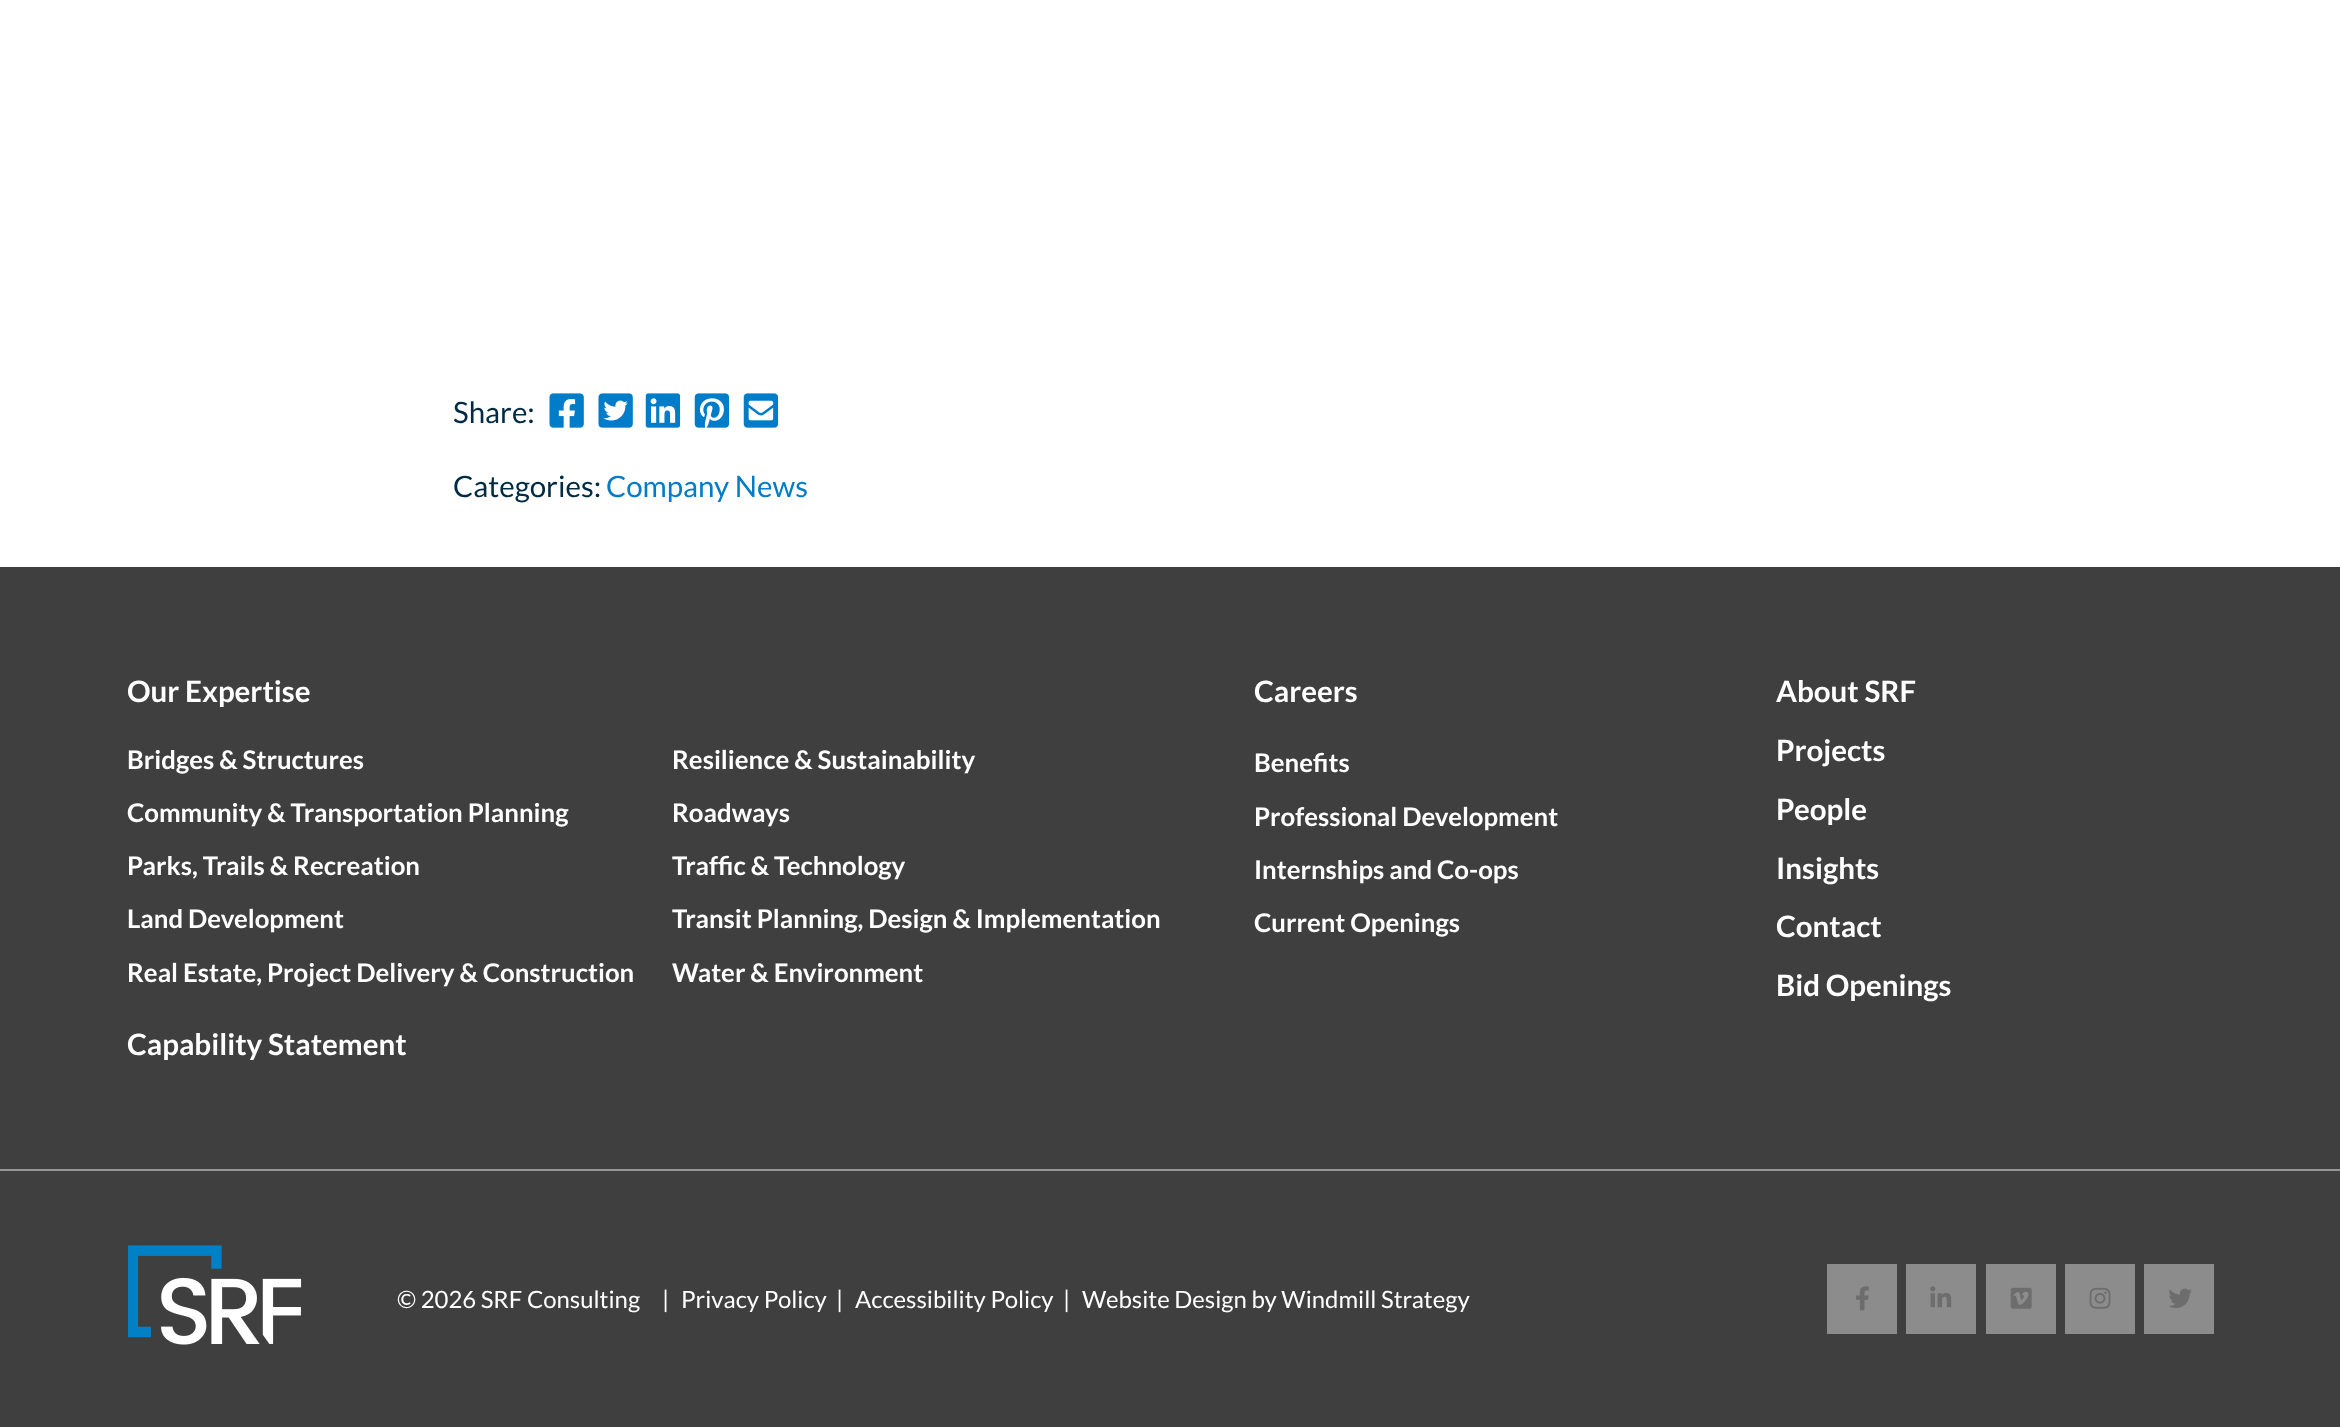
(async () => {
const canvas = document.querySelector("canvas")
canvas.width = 2340
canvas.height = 1427
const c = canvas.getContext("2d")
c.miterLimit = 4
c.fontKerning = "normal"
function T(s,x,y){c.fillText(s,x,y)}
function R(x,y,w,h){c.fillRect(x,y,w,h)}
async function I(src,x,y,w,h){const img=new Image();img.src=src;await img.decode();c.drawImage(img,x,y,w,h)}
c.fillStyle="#3f3f3f"
R(0,0,2340,1427)
c.fillStyle="#fff"
R(0,0,2340,567)
c.font="29.5px Lato"
c.fillStyle="#002b44"
T("Share:",453,423)
await I("1.png",549,393,35,35)
await I("2.png",598,393,35,35)
await I("3.png",645,393,36,35)
await I("4.png",694,393,36,35)
await I("5.png",743,393,36,35)
T("Categories:",453,497)
c.fillStyle="#007cc9"
T("Company News",606,497)
c.font="bold 29.5px Lato"
c.fillStyle="#fff"
T("Our Expertise",127,702)
c.font="bold 25.75px Lato"
T("Bridges & Structures",127,769)
T("Resilience & Sustainability",672,769)
T("Community & Transportation Planning",127,822)
T("Roadways",672,822)
T("Parks, Trails & Recreation",127,875)
T("Traffic & Technology",672,875)
T("Land Development",127,928)
T("Transit Planning, Design & Implementation",672,928)
T("Real Estate, Project Delivery & Construction",127,982)
T("Water & Environment",672,982)
c.font="bold 29.5px Lato"
T("Careers",1254,702)
c.font="bold 25.75px Lato"
T("Benefits",1254,772)
T("Professional Development",1254,826)
T("Internships and Co-ops",1254,879)
T("Current Openings",1254,932)
c.font="bold 29.5px Lato"
T("About SRF",1776,702)
T("Projects",1776,761)
T("People",1776,820)
T("Insights",1776,879)
T("Contact",1776,937)
T("Bid Openings",1776,996)
T("Capability Statement",127,1055)
c.fillStyle="#979797"
R(0,1169,2340,2)
await I("6.png",128,1245,174,100)
c.font="23.9px Lato"
c.fillStyle="#fff"
T("© 2026 SRF Consulting",397,1308)
T("|",662,1308)
T("Privacy Policy",681,1308)
T("|",836,1308)
T("Accessibility Policy",855,1308)
T("|",1063,1308)
T("Website Design by Windmill Strategy",1082,1308)
c.fillStyle="#8c8c8c"
R(1827,1264,70,70)
await I("7.png",1856,1286,13,25)
R(1906,1264,70,70)
await I("8.png",1930,1286,22,22)
R(1986,1264,70,70)
await I("9.png",2010,1287,22,22)
R(2065,1264,70,70)
await I("10.png",2089,1287,22,22)
R(2144,1264,70,70)
await I("11.png",2169,1288,23,20)
})()
